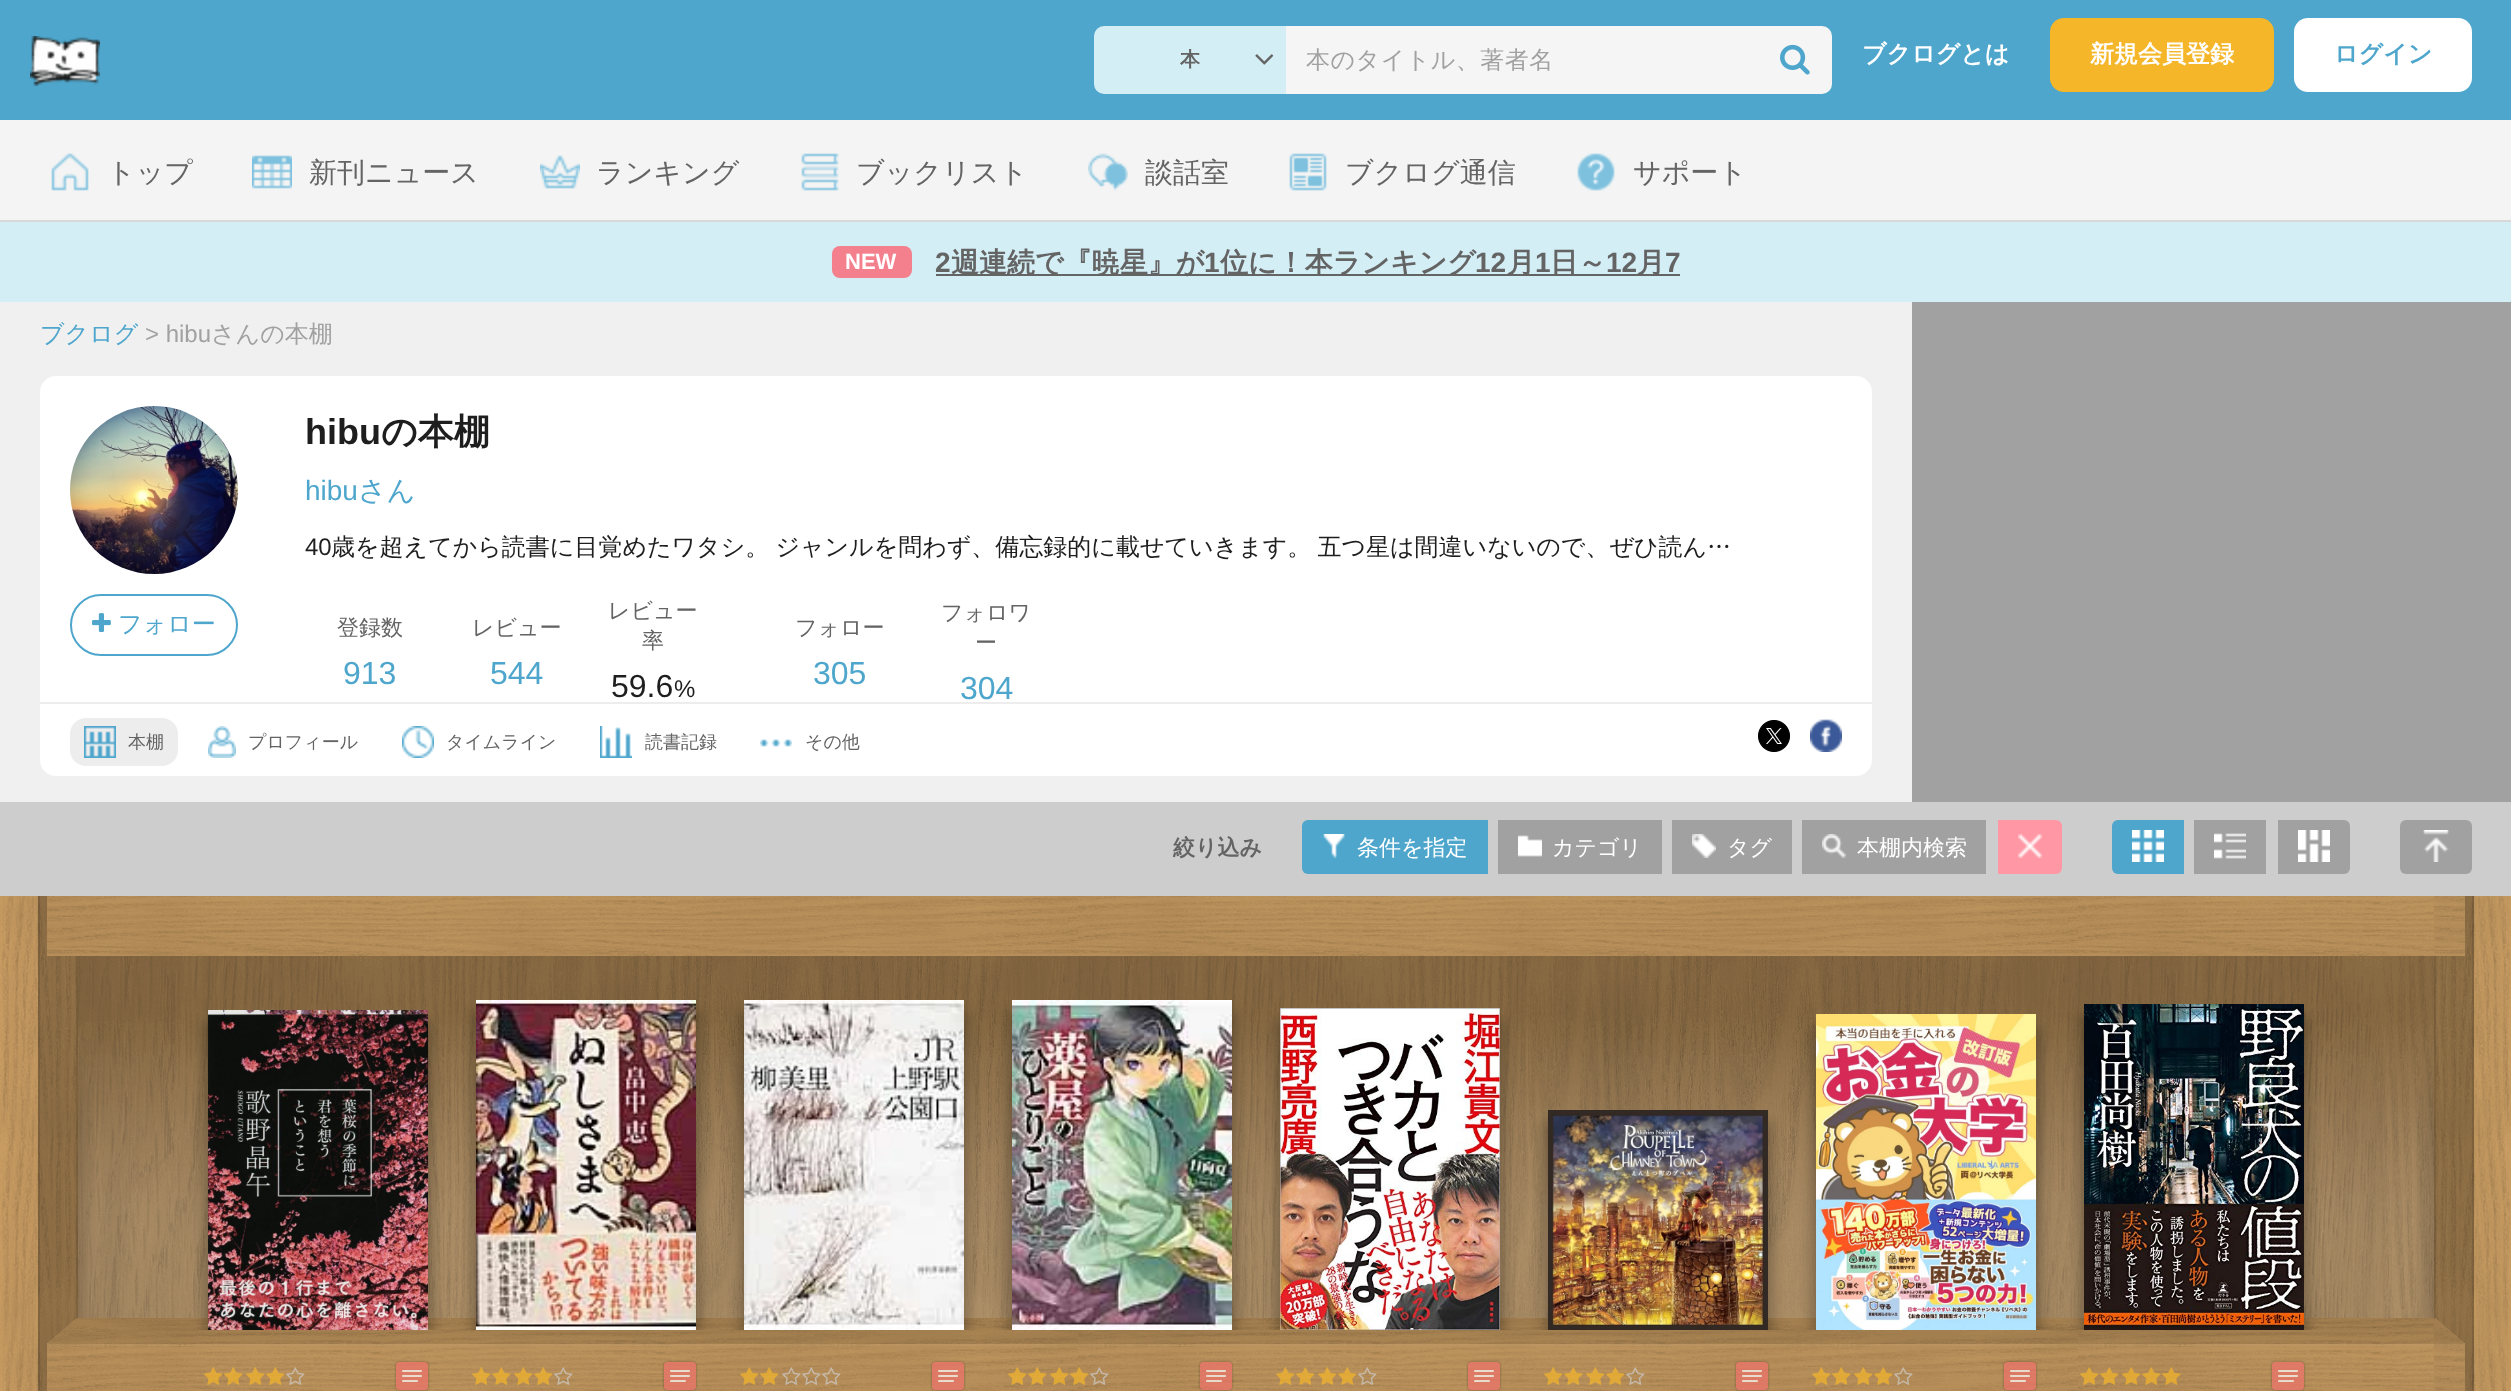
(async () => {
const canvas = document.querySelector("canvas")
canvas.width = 2511
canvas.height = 1391
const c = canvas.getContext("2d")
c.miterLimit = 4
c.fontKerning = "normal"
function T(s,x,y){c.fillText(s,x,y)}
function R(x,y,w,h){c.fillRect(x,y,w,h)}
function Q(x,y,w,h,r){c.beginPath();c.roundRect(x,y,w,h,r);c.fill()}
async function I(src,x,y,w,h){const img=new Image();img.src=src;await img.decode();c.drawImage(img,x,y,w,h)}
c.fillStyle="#4ea6cc"
R(0,0,2511,1391)
await I("1.png",30,36,70,50)
c.fillStyle="#d4eef6"
c.beginPath()
c.roundRect(1094,26,192,68,[10,0,0,10])
c.fill()
c.font="bold 20px WenQuanYi Zen Hei"
c.fillStyle="#646464"
T("本",1180,66)
await I("2.png",1255,54,19,11)
c.fillStyle="#f5f5f5"
c.beginPath()
c.roundRect(1286,26,546,68,[0,10,10,0])
c.fill()
c.letterSpacing="0.5px"
c.font="500 24px WenQuanYi Zen Hei"
c.fillStyle="#a1a1a1"
T("本のタイトル、著者名",1306,68)
await I("3.png",1780,44,30,31)
c.letterSpacing="0px"
c.font="bold 24px WenQuanYi Zen Hei"
c.fillStyle="#fff"
T("ブクログとは",1862,62)
c.fillStyle="#f5b629"
Q(2050,18,224,74,14)
c.fillStyle="#fff"
T("新規会員登録",2090,62)
Q(2294,18,178,74,14)
c.fillStyle="#4ea6cc"
T("ログイン",2334,62)
c.fillStyle="#f4f4f4"
R(0,120,2511,100)
c.fillStyle="#d8d8d8"
R(0,220,2511,2)
await I("4.png",51,153,38,38)
c.font="500 28px WenQuanYi Zen Hei"
c.fillStyle="#646464"
T("トップ",107,182)
await I("5.png",252,155,40,34)
T("新刊ニュース",309,182)
await I("6.png",540,155,40,34)
T("ランキング",596,182)
await I("7.png",801,153,38,38)
T("ブックリスト",856,182)
await I("8.png",1088,153,40,38)
T("談話室",1145,182)
await I("9.png",1289,153,38,38)
T("ブクログ通信",1345,182)
await I("10.png",1577,153,38,38)
T("サポート",1633,182)
c.fillStyle="#d4eef6"
R(0,222,2511,80)
c.fillStyle="#f47f8d"
Q(832,246,80,32,8)
c.font="bold 22px Liberation Sans"
c.fillStyle="#fff"
T("NEW",845,269)
c.font="bold 28px Liberation Sans"
c.fillStyle="#646464"
T("2",935,272)
R(936,274,744,2)
c.font="bold 28px WenQuanYi Zen Hei"
T("週連続で『暁星』が",951,272)
c.font="bold 28px Liberation Sans"
T("1",1204,272)
c.font="bold 28px WenQuanYi Zen Hei"
T("位に！本ランキング",1220,272)
c.font="bold 28px Liberation Sans"
T("12",1475,272)
c.font="bold 28px WenQuanYi Zen Hei"
T("月",1507,272)
c.font="bold 28px Liberation Sans"
T("1",1535,272)
c.font="bold 28px WenQuanYi Zen Hei"
T("日～",1550,272)
c.font="bold 28px Liberation Sans"
T("12",1606,272)
c.font="bold 28px WenQuanYi Zen Hei"
T("月",1637,272)
c.font="bold 28px Liberation Sans"
T("7",1665,272)
c.fillStyle="#f0f0f0"
R(0,302,1912,500)
c.font="500 24px WenQuanYi Zen Hei"
c.fillStyle="#4ea6cc"
T("ブクログ",40,342)
c.font="24px Liberation Sans"
c.fillStyle="#a1a1a1"
T("> hibu",145,342)
c.font="500 24px WenQuanYi Zen Hei"
T("さんの本棚",211,342)
c.fillStyle="#fff"
Q(40,376,1832,400,16)
await I("11.png",70,406,168,168)
c.beginPath()
c.roundRect(71,595,166,60,30)
c.strokeStyle="#4ea6cc"
c.lineWidth=2
c.stroke()
await I("12.png",92,613,19,19)
c.fillStyle="#4ea6cc"
T("フォロー",118,632)
c.font="bold 36px Liberation Sans"
c.fillStyle="#1e1e1e"
T("hibu",305,444)
c.font="bold 36px WenQuanYi Zen Hei"
T("の本棚",381,444)
c.font="28px Liberation Sans"
c.fillStyle="#4ea6cc"
T("hibu",305,500)
c.font="500 28px WenQuanYi Zen Hei"
T("さん",358,500)
c.font="24px Liberation Sans"
c.fillStyle="#1e1e1e"
T("40",305,555)
c.wordSpacing="-1px"
c.font="500 24px WenQuanYi Zen Hei"
T("歳を超えてから読書に目覚めたワタシ。 ジャンルを問わず、備忘録的に載せていきます。 五つ星は間違いないので、ぜひ読ん…",331,555)
c.wordSpacing="0px"
c.font="500 22px WenQuanYi Zen Hei"
c.fillStyle="#646464"
T("登録数",337,635)
c.font="32px Liberation Sans"
c.fillStyle="#4ea6cc"
T("913",343,684)
c.font="500 22px WenQuanYi Zen Hei"
c.fillStyle="#646464"
T("レビュー",472,635)
c.font="32px Liberation Sans"
c.fillStyle="#4ea6cc"
T("544",490,684)
c.font="500 22px WenQuanYi Zen Hei"
c.fillStyle="#646464"
T("レビュー",608,618)
T("率",642,648)
c.font="32px Liberation Sans"
c.fillStyle="#1e1e1e"
T("59.6",611,697)
c.font="24px Liberation Sans"
T("%",674,697)
c.font="500 22px WenQuanYi Zen Hei"
c.fillStyle="#646464"
T("フォロー",795,635)
c.font="32px Liberation Sans"
c.fillStyle="#4ea6cc"
T("305",813,684)
c.font="500 22px WenQuanYi Zen Hei"
c.fillStyle="#646464"
T("フォロワ",941,620)
T("ー",975,650)
c.font="32px Liberation Sans"
c.fillStyle="#4ea6cc"
T("304",960,699)
c.fillStyle="#ededed"
R(40,702,1832,2)
Q(70,718,108,48,16)
await I("13.png",84,726,32,32)
c.font="500 18px WenQuanYi Zen Hei"
c.fillStyle="#646464"
T("本棚",128,748)
await I("14.png",208,726,28,32)
T("プロフィール",248,748)
await I("15.png",402,726,32,32)
T("タイムライン",446,748)
await I("16.png",600,726,32,32)
T("読書記録",645,748)
await I("17.png",760,739,32,8)
T("その他",805,748)
await I("18.png",1758,720,32,32)
await I("19.png",1810,719,32,33)
c.fillStyle="#a1a1a1"
R(1912,302,599,500)
c.fillStyle="#cdcdcd"
R(0,802,2511,94)
c.font="bold 22px WenQuanYi Zen Hei"
c.fillStyle="#646464"
T("絞り込み",1173,855)
c.fillStyle="#4ea6cc"
c.beginPath()
c.roundRect(1302,820,186,54,[6,0,0,6])
c.fill()
await I("20.png",1323,834,22,24)
c.font="500 22px WenQuanYi Zen Hei"
c.fillStyle="#fff"
T("条件を指定",1357,855)
c.fillStyle="#a1a1a1"
R(1498,820,164,54)
await I("21.png",1518,835,24,22)
c.fillStyle="#fff"
T("カテゴリ",1552,855)
c.fillStyle="#a1a1a1"
R(1672,820,120,54)
await I("22.png",1692,834,24,24)
c.fillStyle="#fff"
T("タグ",1727,855)
c.fillStyle="#a1a1a1"
R(1802,820,184,54)
await I("23.png",1822,834,24,24)
c.fillStyle="#fff"
T("本棚内検索",1857,855)
c.fillStyle="#ff98a4"
c.beginPath()
c.roundRect(1998,820,64,54,[0,6,6,0])
c.fill()
await I("24.png",2018,834,24,24)
c.fillStyle="#4ea6cc"
c.beginPath()
c.roundRect(2112,820,72,54,[6,0,0,6])
c.fill()
await I("25.png",2132,830,32,32)
c.fillStyle="#a1a1a1"
R(2194,820,72,54)
await I("26.png",2214,833,32,26)
c.beginPath()
c.roundRect(2278,820,72,54,[0,6,6,0])
c.fill()
await I("27.png",2298,830,32,32)
Q(2400,820,72,54,6)
await I("28.png",2423,830,26,32)
c.fillStyle="#e8b572"
R(0,896,2511,495)
await I("29.png",0,896,2511,495)
await I("30.png",78,896,2356,495)
c.save()
c.beginPath()
c.rect(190,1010,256,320)
c.clip()
c.fillStyle="#00000033"
c.filter="blur(6px)"
c.beginPath()
c.rect(202,1022,220,320)
c.fill()
c.filter="none"
c.filter="blur(6px)"
c.beginPath()
c.rect(214,1022,220,320)
c.fill()
c.filter="none"
c.restore()
await I("31.png",208,1010,220,320)
await I("32.png",204,1367,19,18)
await I("33.png",224,1367,19,18)
await I("34.png",246,1367,19,18)
await I("35.png",266,1367,19,18)
await I("36.png",286,1367,19,18)
await I("37.png",394,1360,36,31)
c.save()
c.beginPath()
c.rect(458,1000,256,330)
c.clip()
c.fillStyle="#00000033"
c.filter="blur(6px)"
c.beginPath()
c.rect(470,1012,220,330)
c.fill()
c.filter="none"
c.filter="blur(6px)"
c.beginPath()
c.rect(482,1012,220,330)
c.fill()
c.filter="none"
c.restore()
await I("38.png",476,1000,220,330)
await I("39.png",472,1367,19,18)
await I("40.png",492,1367,19,18)
await I("41.png",514,1367,19,18)
await I("42.png",534,1367,19,18)
await I("43.png",554,1367,19,18)
await I("44.png",662,1360,36,31)
c.save()
c.beginPath()
c.rect(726,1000,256,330)
c.clip()
c.fillStyle="#00000033"
c.filter="blur(6px)"
c.beginPath()
c.rect(738,1012,220,330)
c.fill()
c.filter="none"
c.filter="blur(6px)"
c.beginPath()
c.rect(750,1012,220,330)
c.fill()
c.filter="none"
c.restore()
await I("45.png",744,1000,220,330)
await I("46.png",740,1367,19,18)
await I("47.png",760,1367,19,18)
await I("48.png",782,1367,19,18)
await I("49.png",802,1367,19,18)
await I("50.png",822,1367,19,18)
await I("51.png",930,1360,36,31)
c.save()
c.beginPath()
c.rect(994,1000,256,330)
c.clip()
c.fillStyle="#00000033"
c.filter="blur(6px)"
c.beginPath()
c.rect(1006,1012,220,330)
c.fill()
c.filter="none"
c.filter="blur(6px)"
c.beginPath()
c.rect(1018,1012,220,330)
c.fill()
c.filter="none"
c.restore()
await I("52.png",1012,1000,220,330)
await I("53.png",1008,1367,19,18)
await I("54.png",1028,1367,19,18)
await I("55.png",1050,1367,19,18)
await I("56.png",1070,1367,19,18)
await I("57.png",1090,1367,19,18)
await I("58.png",1198,1360,36,31)
c.save()
c.beginPath()
c.rect(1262,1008,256,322)
c.clip()
c.fillStyle="#00000033"
c.filter="blur(6px)"
c.beginPath()
c.rect(1274,1020,220,322)
c.fill()
c.filter="none"
c.filter="blur(6px)"
c.beginPath()
c.rect(1286,1020,220,322)
c.fill()
c.filter="none"
c.restore()
await I("59.png",1280,1008,220,322)
await I("60.png",1276,1367,19,18)
await I("61.png",1296,1367,19,18)
await I("62.png",1318,1367,19,18)
await I("63.png",1338,1367,19,18)
await I("64.png",1358,1367,19,18)
await I("65.png",1466,1360,36,31)
c.save()
c.beginPath()
c.rect(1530,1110,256,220)
c.clip()
c.fillStyle="#00000033"
c.filter="blur(6px)"
c.beginPath()
c.rect(1542,1122,220,220)
c.fill()
c.filter="none"
c.filter="blur(6px)"
c.beginPath()
c.rect(1554,1122,220,220)
c.fill()
c.filter="none"
c.restore()
await I("66.png",1548,1110,220,220)
await I("67.png",1544,1367,19,18)
await I("68.png",1564,1367,19,18)
await I("69.png",1586,1367,19,18)
await I("70.png",1606,1367,19,18)
await I("71.png",1626,1367,19,18)
await I("72.png",1734,1360,36,31)
c.save()
c.beginPath()
c.rect(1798,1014,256,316)
c.clip()
c.fillStyle="#00000033"
c.filter="blur(6px)"
c.beginPath()
c.rect(1810,1026,220,316)
c.fill()
c.filter="none"
c.filter="blur(6px)"
c.beginPath()
c.rect(1822,1026,220,316)
c.fill()
c.filter="none"
c.restore()
await I("73.png",1816,1014,220,316)
await I("74.png",1812,1367,19,18)
await I("75.png",1832,1367,19,18)
await I("76.png",1854,1367,19,18)
await I("77.png",1874,1367,19,18)
await I("78.png",1894,1367,19,18)
await I("79.png",2002,1360,36,31)
c.save()
c.beginPath()
c.rect(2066,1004,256,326)
c.clip()
c.fillStyle="#00000033"
c.filter="blur(6px)"
c.beginPath()
c.rect(2078,1016,220,326)
c.fill()
c.filter="none"
c.filter="blur(6px)"
c.beginPath()
c.rect(2090,1016,220,326)
c.fill()
c.filter="none"
c.restore()
await I("80.png",2084,1004,220,326)
await I("81.png",2080,1367,19,18)
await I("82.png",2100,1367,19,18)
await I("83.png",2122,1367,19,18)
await I("84.png",2142,1367,19,18)
await I("85.png",2162,1367,19,18)
await I("86.png",2270,1360,36,31)
})()
